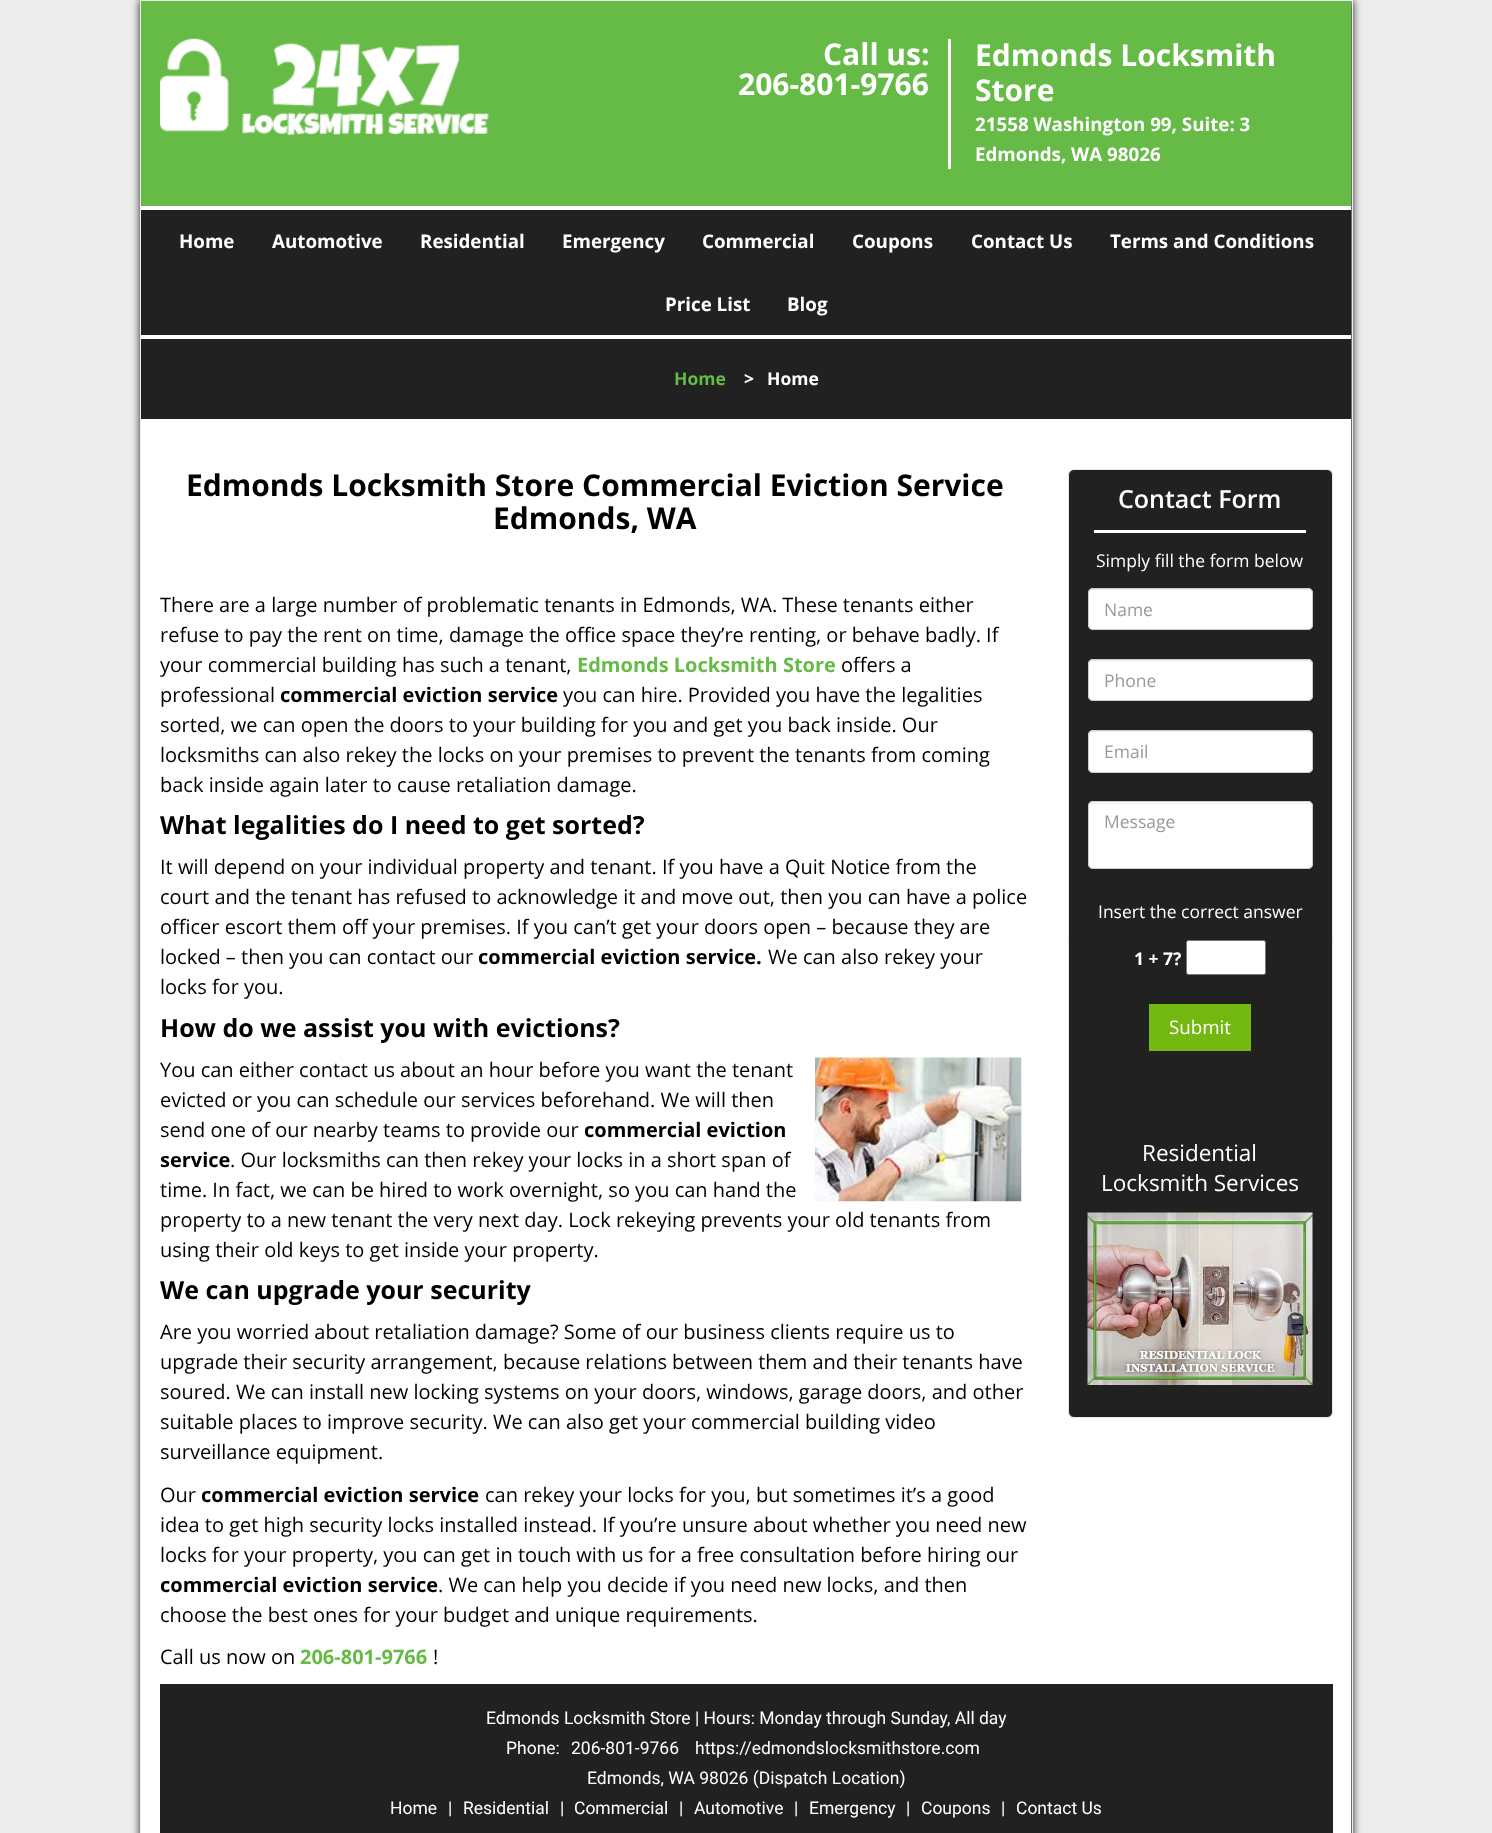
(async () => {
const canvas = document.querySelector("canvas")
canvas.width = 1492
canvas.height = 1833
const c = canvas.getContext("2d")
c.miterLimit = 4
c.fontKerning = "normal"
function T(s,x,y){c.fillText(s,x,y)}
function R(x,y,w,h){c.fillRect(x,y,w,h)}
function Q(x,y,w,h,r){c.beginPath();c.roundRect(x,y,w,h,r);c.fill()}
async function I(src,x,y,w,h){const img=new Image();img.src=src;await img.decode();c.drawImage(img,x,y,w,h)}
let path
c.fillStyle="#ededed"
R(0,0,1492,1833)
c.fillStyle="#212121"
c.filter="blur(4.5px)"
c.beginPath()
c.rect(140,0,1213,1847)
c.fill()
c.filter="none"
c.strokeStyle="#ededed"
c.strokeRect(140.5,.5,1212,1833)
c.fillStyle="#65bb46"
R(141,1,1210,205)
await I("1.png",160,38,329,97)
c.font="bold 30px Open Sans"
c.fillStyle="#fff"
T("Call us:",823,65)
T("206-801-9766",738,95)
R(948,39,3,130)
T("Edmonds Locksmith",975,66)
T("Store",975,101)
c.font="bold 18.75px Open Sans"
T("21558 Washington 99, Suite: 3",975,131)
T("Edmonds, WA 98026",975,161)
c.fillStyle="#212121"
R(141,210,1210,125)
c.fillStyle="#fff"
R(141,206,1210,4)
R(141,335,1210,4)
T("Home",179,248)
T("Automotive",272,248)
T("Residential",420,248)
T("Emergency",562,248)
T("Commercial",702,248)
T("Coupons",852,248)
T("Contact Us",971,248)
T("Terms and Conditions",1110,248)
T("Price List",665,311)
T("Blog",787,311)
c.fillStyle="#212121"
R(141,339,1210,80)
c.font="bold 17.5px Open Sans"
c.fillStyle="#65bb46"
T("Home",674,385)
c.fillStyle="#fff"
T(">",744,385)
T("Home",767,385)
R(141,419,1210,1414)
c.font="bold 30px Open Sans"
c.fillStyle="#000"
T("Edmonds Locksmith Store Commercial Eviction Service",186,496)
T("Edmonds, WA",493,529)
c.font="20px Open Sans"
T("There are a large number of problematic tenants in Edmonds, WA. These tenants either",160,612)
T("refuse to pay the rent on time, damage the office space they’re renting, or behave badly. If",160,642)
T("your commercial building has such a tenant,",160,672)
c.font="bold 20px Open Sans"
c.fillStyle="#65bb46"
T("Edmonds Locksmith Store",577,672)
c.font="20px Open Sans"
c.fillStyle="#000"
T("offers a",841,672)
T("professional",160,702)
c.font="bold 20px Open Sans"
T("commercial eviction service",280,702)
c.font="20px Open Sans"
T("you can hire. Provided you have the legalities",563,702)
T("sorted, we can open the doors to your building for you and get you back inside. Our",160,732)
T("locksmiths can also rekey the locks on your premises to prevent the tenants from coming",160,762)
T("back inside again later to cause retaliation damage.",160,792)
c.font="bold 25px Open Sans"
T("What legalities do I need to get sorted?",160,834)
c.font="20px Open Sans"
T("It will depend on your individual property and tenant. If you have a Quit Notice from the",160,874)
T("court and the tenant has refused to acknowledge it and move out, then you can have a police",160,904)
T("officer escort them off your premises. If you can’t get your doors open – because they are",160,934)
T("locked – then you can contact our",160,964)
c.font="bold 20px Open Sans"
T("commercial eviction service.",478,964)
c.font="20px Open Sans"
T("We can also rekey your",768,964)
T("locks for you.",160,994)
c.font="bold 25px Open Sans"
T("How do we assist you with evictions?",160,1037)
c.font="20px Open Sans"
T("You can either contact us about an hour before you want the tenant",160,1077)
await I("2.png",815,1057,207,145)
T("evicted or you can schedule our services beforehand. We will then",160,1107)
T("send one of our nearby teams to provide our",160,1137)
c.font="bold 20px Open Sans"
T("commercial eviction",584,1137)
T("service",160,1167)
c.font="20px Open Sans"
T(". Our locksmiths can then rekey your locks in a short span of",230,1167)
T("time. In fact, we can be hired to work overnight, so you can hand the",160,1197)
T("property to a new tenant the very next day. Lock rekeying prevents your old tenants from",160,1227)
T("using their old keys to get inside your property.",160,1257)
c.font="bold 25px Open Sans"
T("We can upgrade your security",160,1299)
c.font="20px Open Sans"
T("Are you worried about retaliation damage? Some of our business clients require us to",160,1339)
T("upgrade their security arrangement, because relations between them and their tenants have",160,1369)
T("soured. We can install new locking systems on your doors, windows, garage doors, and other",160,1399)
T("suitable places to improve security. We can also get your commercial building video",160,1429)
T("surveillance equipment.",160,1459)
T("Our",160,1502)
c.font="bold 20px Open Sans"
T("commercial eviction service",201,1502)
c.font="20px Open Sans"
T("can rekey your locks for you, but sometimes it’s a good",485,1502)
T("idea to get high security locks installed instead. If you’re unsure about whether you need new",160,1532)
T("locks for your property, you can get in touch with us for a free consultation before hiring our",160,1562)
c.font="bold 20px Open Sans"
T("commercial eviction service",160,1592)
c.font="20px Open Sans"
T(". We can help you decide if you need new locks, and then",438,1592)
T("choose the best ones for your budget and unique requirements.",160,1622)
T("Call us now on",160,1664)
c.font="bold 20px Open Sans"
c.fillStyle="#65bb46"
T("206-801-9766",300,1664)
c.font="20px Open Sans"
c.fillStyle="#000"
T("!",433,1664)
c.fillStyle="#212121"
c.beginPath()
c.roundRect(1068.5,469.5,264,948,5.5)
c.fill()
c.strokeStyle="#e6e6e6"
c.stroke()
c.fillStyle="#fff"
R(1094,530,212,3)
c.font="600 25px Open Sans"
T("Contact Form",1118,508)
c.font="17.5px Open Sans"
T("Simply fill the form below",1096,567)
Q(1088,588,225,42,5)
c.fillStyle="#ececec"
path = new Path2D("M1092 590h216l2 1l1 3c0-3-1-5-4-5h-214c-3 0-4 2-4 5c0-2 1-4 3-4z")
c.fill(path)
c.beginPath()
c.roundRect(1088.5,588.5,224,41,4.5)
c.strokeStyle="#ccc"
c.stroke()
c.fillStyle="#999"
T("Name",1104,616)
c.fillStyle="#fff"
Q(1088,659,225,42,5)
c.fillStyle="#ececec"
path = new Path2D("M1092 661h216l2 1l1 3c0-3-1-5-4-5h-214c-3 0-4 2-4 5c0-2 1-4 3-4z")
c.fill(path)
c.beginPath()
c.roundRect(1088.5,659.5,224,41,4.5)
c.stroke()
c.fillStyle="#999"
T("Phone",1104,687)
c.fillStyle="#fff"
Q(1088,730,225,43,5)
c.fillStyle="#ececec"
path = new Path2D("M1092 732h216l2 1l1 3c0-3-1-5-4-5h-214c-3 0-4 2-4 5c0-2 1-4 3-4z")
c.fill(path)
c.beginPath()
c.roundRect(1088.5,730.5,224,42,4.5)
c.stroke()
c.fillStyle="#999"
T("Email",1104,758)
c.fillStyle="#fff"
Q(1088,801,225,68,5)
c.fillStyle="#ececec"
path = new Path2D("M1092 804h216c2 0 3 1 3 4c0-3-1-5-4-5h-214c-3 0-4 2-4 5c0-3 1-4 3-4z")
c.fill(path)
c.beginPath()
c.roundRect(1088.5,801.5,224,67,4.5)
c.stroke()
c.fillStyle="#999"
T("Message",1104,828)
c.fillStyle="#fff"
T("Insert the correct answer",1098,918)
c.font="bold 17.5px Open Sans"
T("1 + 7?",1134,965)
c.beginPath()
c.roundRect(1186.5,940.5,79,34,2)
c.fill()
c.strokeStyle="#767676"
c.stroke()
c.fillStyle="#73b810"
R(1149,1004,102,47)
c.font="18.75px Open Sans"
c.fillStyle="#fff"
T("Submit",1169,1034)
c.font="22.5px Open Sans"
T("Residential",1142,1161)
T("Locksmith Services",1101,1191)
await I("3.png",1087,1212,226,173)
c.fillStyle="#212121"
R(160,1684,1173,149)
c.font="17.5px Roboto"
c.fillStyle="#fff"
T("Edmonds Locksmith Store | Hours: Monday through Sunday, All day",486,1724)
T("Phone:",506,1754)
T("206-801-9766",571,1754)
T("https://edmondslocksmithstore.com",695,1754)
T("Edmonds, WA 98026 (Dispatch Location)",587,1784)
T("Home",390,1814)
T("|",448,1814)
T("Residential",463,1814)
T("|",560,1814)
T("Commercial",574,1814)
T("|",679,1814)
T("Automotive",694,1814)
T("|",794,1814)
T("Emergency",809,1814)
T("|",906,1814)
T("Coupons",921,1814)
T("|",1001,1814)
T("Contact Us",1016,1814)
})()
